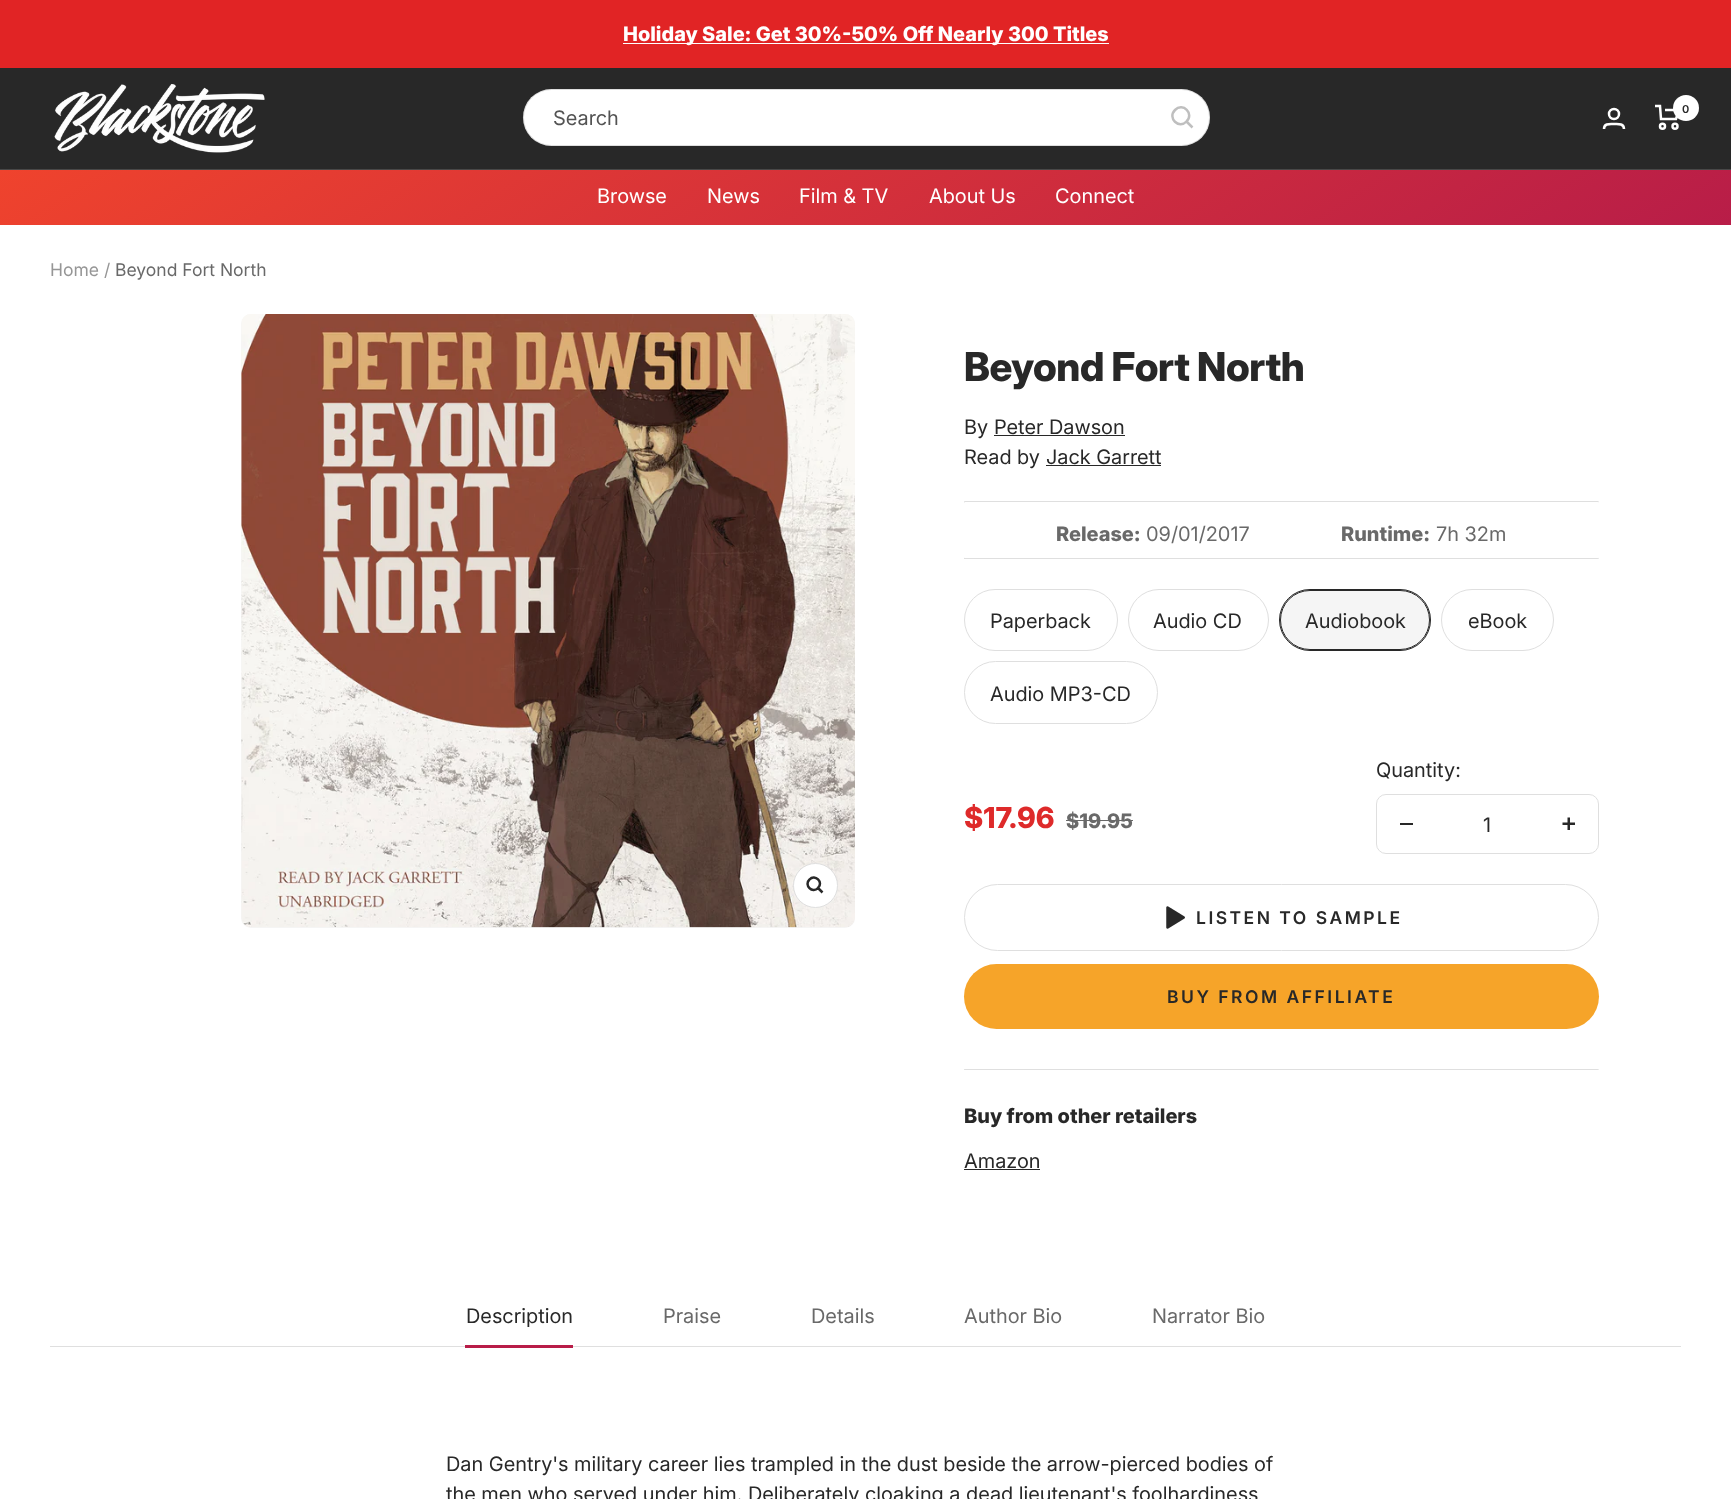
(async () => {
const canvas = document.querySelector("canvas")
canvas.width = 1731
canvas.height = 1499
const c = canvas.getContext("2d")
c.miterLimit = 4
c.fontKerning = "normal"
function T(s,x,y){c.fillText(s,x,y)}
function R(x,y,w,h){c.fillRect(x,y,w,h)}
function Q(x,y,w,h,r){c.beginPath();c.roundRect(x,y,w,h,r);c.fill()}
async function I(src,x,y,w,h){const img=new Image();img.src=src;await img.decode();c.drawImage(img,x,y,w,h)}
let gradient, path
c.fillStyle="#fff"
R(0,0,1731,1499)
c.fillStyle="#e12425"
R(0,0,1731,68)
c.fillStyle="#fff"
R(623,43,486,1)
c.font="800 20px Inter"
T("Holiday Sale: Get 30%-50% Off Nearly 300 Titles",623,41)
c.fillStyle="#282828"
R(0,68,1731,101)
await I("1.png",54,84,211,69)
c.beginPath()
c.arc(1614,114,5,0,7)
c.strokeStyle="#fff"
c.lineWidth=2.5
c.stroke()
path = new Path2D("M1604 129c0-6 6-5 10-5c3.5 0 10-1 10 5")
c.stroke(path)
path = new Path2D("M1655 106h5l1 13h15l3-9h-14")
c.stroke(path)
c.beginPath()
c.arc(1662.5,126.2,2.5,0,7)
c.stroke()
c.beginPath()
c.arc(1675,126.2,2.5,0,7)
c.stroke()
c.fillStyle="#fff"
c.beginPath()
c.arc(1686,108,13,0,7)
c.fill()
c.font="600 11px Inter"
c.fillStyle="#282828"
T("0",1682,113)
c.fillStyle="#fff"
Q(523,89,687,57,28.5)
c.beginPath()
c.roundRect(523.5,89.5,686,56,28)
c.strokeStyle="#28282826"
c.lineWidth=1
c.stroke()
c.font="20px 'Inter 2'"
c.fillStyle="#535353"
T("Search",553,125)
path = new Path2D("M1186.5 121.5c8-7.5-3.5-19.5-11.5-11.5c-8 8 4 19.5 11.5 11.5zm0 0l6 6")
c.strokeStyle="#bfbfbf"
c.lineWidth=2.5
c.stroke(path)
gradient = c.createLinearGradient(596,-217,1135,612)
gradient.addColorStop(0,"#ef432d")
gradient.addColorStop(1,"#b81d48")
c.fillStyle = gradient
R(0,170,1731,55)
c.fillStyle="#484848"
R(0,169,1731,1)
c.fillStyle="#fff"
T("Browse",597,203)
T("News",707,203)
T("Film & TV",799,203)
T("About Us",929,203)
T("Connect",1055,203)
c.font="17.5px Inter"
c.fillStyle="#969696"
T("Home /",50,276)
c.fillStyle="#696969"
T("Beyond Fort North",115,276)
c.fillStyle="#f5f5f5"
Q(241,314,614,614,10)
await I("2.png",241,314,614,614)
c.fillStyle="#fff"
c.beginPath()
c.arc(815.5,885.5,22,0,7)
c.fill()
c.strokeStyle="#dfdfdf"
c.lineWidth=1
c.stroke()
path = new Path2D("M818 888c6-5.5-3-14.5-8.5-8.5c-6 5.5 3 14.5 8.5 8.5zm0 0l4.5 4.5")
c.strokeStyle="#282828"
c.lineWidth=2.5
c.stroke(path)
c.letterSpacing="-0.4px"
c.font="800 40px 'Inter 2'"
c.fillStyle="#282828"
T("Beyond Fort North",964,381)
c.letterSpacing="0px"
c.font="20px 'Inter 2'"
T("By",964,434)
T("Peter Dawson",994,434)
R(994,435,131,1)
T("Read by",964,464)
T("Jack Garrett",1046,464)
R(1046,465,115,1)
c.fillStyle="#dfdfdf"
path = new Path2D("M964 501h635l-1 1h-633z")
c.fill(path)
c.fillStyle="#dfdfdf4d"
path = new Path2D("M1599 501v1.5h-1.5z")
c.fill(path)
c.fillStyle="#9595954d"
path = new Path2D("M964 502.5v-1.5l1 1.5z")
c.fill(path)
c.font="800 20px Inter"
c.fillStyle="#696969"
T("Release:",1056,541)
c.font="20px 'Inter 2'"
T("09/01/2017",1146,541)
c.font="800 20px Inter"
T("Runtime:",1341,541)
c.font="20px 'Inter 2'"
T("7h 32m",1436,541)
c.fillStyle="#dfdfdf"
path = new Path2D("M964 558h635l-1 1h-633z")
c.fill(path)
c.fillStyle="#eaeaea"
path = new Path2D("M1599 557.5v1.5h-1.5z")
c.fill(path)
c.fillStyle="#d5d5d5"
path = new Path2D("M964 559v-1.5l1 1.5z")
c.fill(path)
c.beginPath()
c.roundRect(964.5,589.5,153,61,30.5)
c.strokeStyle="#dfdfdf"
c.lineWidth=1
c.stroke()
c.fillStyle="#282828"
T("Paperback",990,628)
c.beginPath()
c.roundRect(1128.5,589.5,140,61,30.5)
c.stroke()
T("Audio CD",1153,628)
c.fillStyle="#f5f5f5"
c.beginPath()
c.roundRect(1279.5,589.5,151,61,30.5)
c.fill()
c.stroke()
c.beginPath()
c.roundRect(1279.5,589.5,151,61,30.5)
c.strokeStyle="#282828"
c.stroke()
c.beginPath()
c.roundRect(1280.5,590.5,149,59,29.5)
c.stroke()
c.fillStyle="#282828"
T("Audiobook",1305,628)
c.beginPath()
c.roundRect(1441.5,589.5,112,61,30.5)
c.strokeStyle="#dfdfdf"
c.stroke()
T("eBook",1468,628)
c.beginPath()
c.roundRect(964.5,661.5,193,62,31)
c.stroke()
T("Audio MP3-CD",990,701)
c.font="800 29px 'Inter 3'"
c.fillStyle="#de2a2a"
T("$17.96",964,828)
c.font="800 20px Inter"
c.fillStyle="#696969"
T("$19.95",1066,828)
R(1066,820,67,1)
c.font="20px 'Inter 2'"
c.fillStyle="#282828"
T("Quantity:",1376,777)
c.beginPath()
c.roundRect(1376.5,794.5,222,59,9.5)
c.stroke()
R(1400,823,13,2)
T("1",1483,832)
await I("3.png",1562,817,13,13)
c.beginPath()
c.roundRect(964.5,884.5,634,66,33)
c.stroke()
await I("4.png",1166,906,19,23)
c.letterSpacing="2.5px"
c.font="600 17.5px Inter"
T("LISTEN TO SAMPLE",1196,924)
c.fillStyle="#f6a429"
Q(964,964,635,65,32.5)
c.fillStyle="#282828"
T("BUY FROM AFFILIATE",1167,1003)
c.fillStyle="#dfdfdf"
path = new Path2D("M964 1069h635l-1 1h-633z")
c.fill(path)
c.fillStyle="#eaeaea"
path = new Path2D("M1599 1069v1h-1.5z")
c.fill(path)
c.fillStyle="#d5d5d5"
path = new Path2D("M964 1070v-1l1 1z")
c.fill(path)
c.letterSpacing="0px"
c.font="800 20px Inter"
c.fillStyle="#282828"
T("Buy from other retailers",964,1123)
c.font="20px 'Inter 2'"
T("Amazon",964,1168)
R(964,1169,76,1)
c.fillStyle="#dfdfdf"
R(50,1346,1631,1)
c.fillStyle="#282828"
T("Description",466,1323)
c.fillStyle="#696969"
T("Praise",663,1323)
T("Details",811,1323)
T("Author Bio",964,1323)
T("Narrator Bio",1152,1323)
c.fillStyle="#b81d48"
R(465,1345,108,3)
c.fillStyle="#282828"
T("Dan Gentry's military career lies trampled in the dust beside the arrow-pierced bodies of",446,1471)
T("the men who served under him. Deliberately cloaking a dead lieutenant's foolhardiness",446,1501)
})()
